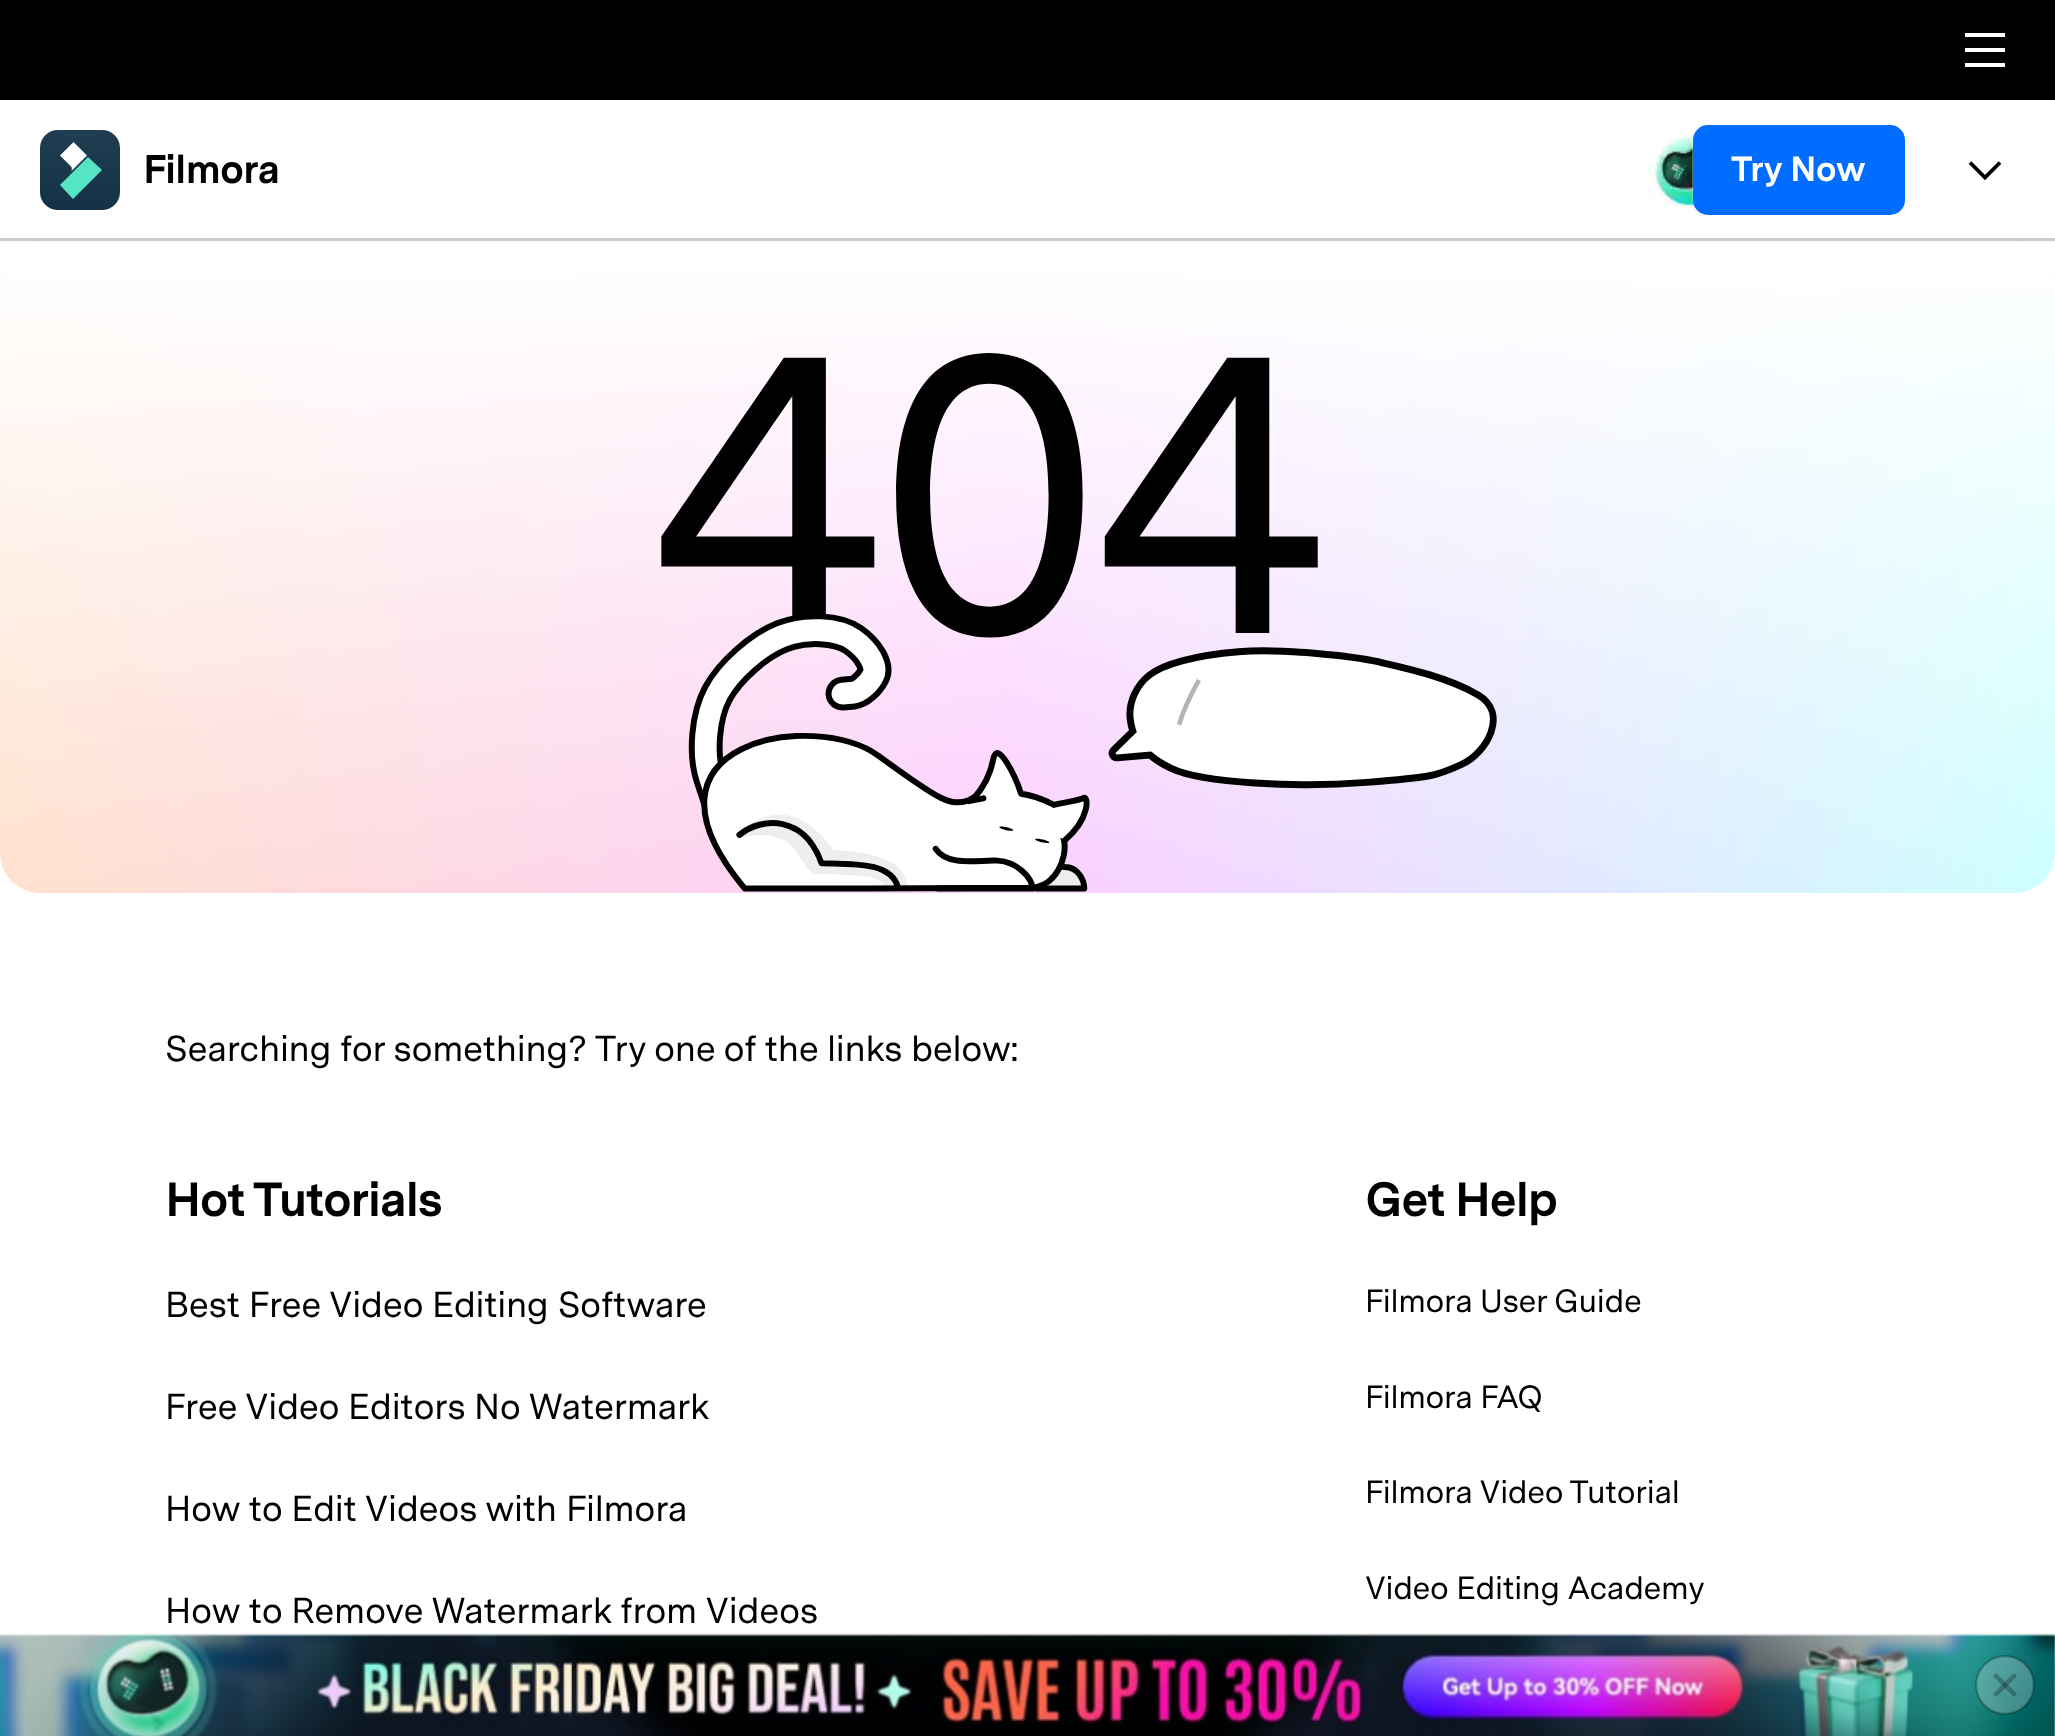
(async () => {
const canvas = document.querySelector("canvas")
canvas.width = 2055
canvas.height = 1736
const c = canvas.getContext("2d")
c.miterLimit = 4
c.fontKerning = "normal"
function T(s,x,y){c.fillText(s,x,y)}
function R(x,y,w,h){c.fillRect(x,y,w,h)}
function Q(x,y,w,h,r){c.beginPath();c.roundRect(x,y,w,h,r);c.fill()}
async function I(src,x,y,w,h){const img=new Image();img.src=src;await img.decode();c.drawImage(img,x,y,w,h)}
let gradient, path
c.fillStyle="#fff"
R(0,0,2055,1736)
c.fillStyle="#000"
R(0,0,2055,100)
path = new Path2D("M1965 35h40m0 15h-40m40 15h-40")
c.strokeStyle="#fff"
c.lineWidth=3.8
c.stroke(path)
gradient = c.createLinearGradient(2055,566,0,566)
gradient.addColorStop(0,"#cdffff")
gradient.addColorStop(.51,"#fccdff")
gradient.addColorStop(1,"#ffe1cd")
c.fillStyle = gradient
Q(0,240,2055,653,40)
gradient = c.createLinearGradient(1028,240,1028,893)
gradient.addColorStop(.04,"#fff")
gradient.addColorStop(1,"#ffffff00")
c.fillStyle = gradient
Q(0,240,2055,653,40)
c.fillStyle="#00000033"
R(0,238,2055,3)
c.letterSpacing="-1px"
c.font="bold 40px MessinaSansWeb"
c.fillStyle="#000"
T("Filmora",143,183)
gradient = c.createLinearGradient(80,130,80,210)
gradient.addColorStop(0,"#203d51")
gradient.addColorStop(1,"#143247")
c.fillStyle = gradient
Q(40,130,80,80,18)
c.fillStyle="#fff"
path = new Path2D("M71 166.5l-11-11l13.5-13.5l13.5 13.5l-15.5 15.5c.5-1.5 .5-3.5-.5-4.5z")
c.fill(path)
c.fillStyle="#55e5c5"
path = new Path2D("M102 170l-29 29l-13-14l28-28z")
c.fill(path)
await I("1.png",1648,134,63,86)
c.fillStyle="#006dff"
Q(1693,125,212,90,15)
c.letterSpacing="-0.75px"
c.font="bold 35px MessinaSansWeb"
c.fillStyle="#fff"
T("Try Now",1731,181)
path = new Path2D("M1970 162.5l15 15l15-15")
c.strokeStyle="#000"
c.stroke(path)
await I("2.png",661,353,836,539)
c.letterSpacing="-0.32px"
c.font="36px MessinaSansWeb"
c.fillStyle="#000"
T("Searching for something? Try one of the links below:",165,1061)
c.letterSpacing="-1.5px"
c.font="bold 48px MessinaSansWeb"
T("Hot Tutorials",165,1216)
c.letterSpacing="-0.32px"
c.font="36px MessinaSansWeb"
T("Best Free Video Editing Software",165,1317)
T("Free Video Editors No Watermark",165,1419)
T("How to Edit Videos with Filmora",165,1521)
T("How to Remove Watermark from Videos",165,1623)
c.letterSpacing="-1.5px"
c.font="bold 48px MessinaSansWeb"
T("Get Help",1365,1216)
c.letterSpacing="-0.32px"
c.font="32px MessinaSansWeb"
T("Filmora User Guide",1365,1312)
T("Filmora FAQ",1365,1408)
T("Filmora Video Tutorial",1365,1503)
T("Video Editing Academy",1365,1599)
await I("3.png",0,1633,2055,103)
await I("4.png",1975,1655,60,60)
})()
